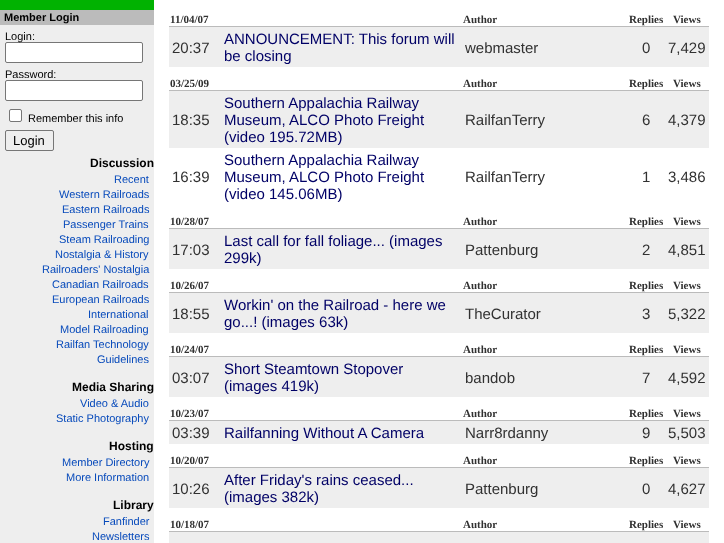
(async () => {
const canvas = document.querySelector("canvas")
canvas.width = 724
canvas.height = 543
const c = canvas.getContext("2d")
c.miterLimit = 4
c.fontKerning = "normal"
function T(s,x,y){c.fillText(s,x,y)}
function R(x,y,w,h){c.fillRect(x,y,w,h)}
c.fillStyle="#fff"
R(0,0,724,543)
c.fillStyle="#eee"
R(0,25,154,518)
c.fillStyle="#01b201"
R(0,0,154,10)
c.fillStyle="#bbb"
R(0,10,154,15)
c.font="bold 11px Liberation Sans"
c.fillStyle="#000"
T("Member Login",4,21)
c.fillStyle="#fff"
c.beginPath()
c.roundRect(5.5,42.5,137,20,1.5)
c.fill()
c.strokeStyle="#767676"
c.stroke()
c.font="11px Liberation Sans"
c.fillStyle="#000"
T("Login:",5,40)
T("Password:",5,78)
c.fillStyle="#fff"
c.beginPath()
c.roundRect(5.5,80.5,137,20,1.5)
c.fill()
c.stroke()
c.beginPath()
c.roundRect(9.5,109.5,12,12,1.5)
c.fill()
c.stroke()
c.fillStyle="#000"
T("Remember this info",28,122)
c.beginPath()
c.roundRect(5.5,130.5,48,20,1.5)
c.stroke()
c.font="13px Liberation Sans"
T("Login",13,145)
c.font="bold 12px Liberation Sans"
T("Discussion",90,167)
c.font="11px Liberation Sans"
c.fillStyle="#074abb"
T("Recent",114,183)
T("Western Railroads",59,198)
T("Eastern Railroads",62,213)
T("Passenger Trains",63,228)
T("Steam Railroading",59,243)
T("Nostalgia & History",55,258)
T("Railroaders' Nostalgia",42,273)
T("Canadian Railroads",52,288)
T("European Railroads",52,303)
T("International",88,318)
T("Model Railroading",60,333)
T("Railfan Technology",56,348)
T("Guidelines",97,363)
c.font="bold 12px Liberation Sans"
c.fillStyle="#000"
T("Media Sharing",72,391)
c.font="11px Liberation Sans"
c.fillStyle="#074abb"
T("Video & Audio",80,407)
T("Static Photography",56,422)
c.font="bold 12px Liberation Sans"
c.fillStyle="#000"
T("Hosting",109,450)
c.font="11px Liberation Sans"
c.fillStyle="#074abb"
T("Member Directory",62,466)
T("More Information",66,481)
c.font="bold 12px Liberation Sans"
c.fillStyle="#000"
T("Library",113,509)
c.font="11px Liberation Sans"
c.fillStyle="#074abb"
T("Fanfinder",103,525)
T("Newsletters",92,540)
c.fillStyle="#bbb"
R(169,26,540,1)
c.font="bold 11px Liberation Serif"
c.fillStyle="#313131"
T("11/04/07",170,23)
T("Author",463,23)
T("Replies",629,23)
T("Views",673,23)
c.fillStyle="#eee"
R(169,27,540,40)
c.font="15px Liberation Sans"
c.fillStyle="#313131"
T("20:37",172,53)
c.fillStyle="#006"
T("ANNOUNCEMENT: This forum will",224,44)
T("be closing",224,61)
c.fillStyle="#313131"
T("webmaster",465,53)
T("0",642,53)
T("7,429",668,53)
c.fillStyle="#bbb"
R(169,90,540,1)
c.font="bold 11px Liberation Serif"
c.fillStyle="#313131"
T("03/25/09",170,87)
T("Author",463,87)
T("Replies",629,87)
T("Views",673,87)
c.fillStyle="#eee"
R(169,91,540,57)
c.font="15px Liberation Sans"
c.fillStyle="#313131"
T("18:35",172,125)
c.fillStyle="#006"
T("Southern Appalachia Railway",224,108)
T("Museum, ALCO Photo Freight",224,125)
T("(video 195.72MB)",224,142)
c.fillStyle="#313131"
T("RailfanTerry",465,125)
T("6",642,125)
T("4,379",668,125)
T("16:39",172,182)
c.fillStyle="#006"
T("Southern Appalachia Railway",224,165)
T("Museum, ALCO Photo Freight",224,182)
T("(video 145.06MB)",224,199)
c.fillStyle="#313131"
T("RailfanTerry",465,182)
T("1",642,182)
T("3,486",668,182)
c.fillStyle="#bbb"
R(169,228,540,1)
c.font="bold 11px Liberation Serif"
c.fillStyle="#313131"
T("10/28/07",170,225)
T("Author",463,225)
T("Replies",629,225)
T("Views",673,225)
c.fillStyle="#eee"
R(169,229,540,40)
c.font="15px Liberation Sans"
c.fillStyle="#313131"
T("17:03",172,255)
c.fillStyle="#006"
T("Last call for fall foliage... (images",224,246)
T("299k)",224,263)
c.fillStyle="#313131"
T("Pattenburg",465,255)
T("2",642,255)
T("4,851",668,255)
c.fillStyle="#bbb"
R(169,292,540,1)
c.font="bold 11px Liberation Serif"
c.fillStyle="#313131"
T("10/26/07",170,289)
T("Author",463,289)
T("Replies",629,289)
T("Views",673,289)
c.fillStyle="#eee"
R(169,293,540,40)
c.font="15px Liberation Sans"
c.fillStyle="#313131"
T("18:55",172,319)
c.fillStyle="#006"
T("Workin' on the Railroad - here we",224,310)
T("go...! (images 63k)",224,327)
c.fillStyle="#313131"
T("TheCurator",465,319)
T("3",642,319)
T("5,322",668,319)
c.fillStyle="#bbb"
R(169,356,540,1)
c.font="bold 11px Liberation Serif"
c.fillStyle="#313131"
T("10/24/07",170,353)
T("Author",463,353)
T("Replies",629,353)
T("Views",673,353)
c.fillStyle="#eee"
R(169,357,540,40)
c.font="15px Liberation Sans"
c.fillStyle="#313131"
T("03:07",172,383)
c.fillStyle="#006"
T("Short Steamtown Stopover",224,374)
T("(images 419k)",224,391)
c.fillStyle="#313131"
T("bandob",465,383)
T("7",642,383)
T("4,592",668,383)
c.fillStyle="#bbb"
R(169,420,540,1)
c.font="bold 11px Liberation Serif"
c.fillStyle="#313131"
T("10/23/07",170,417)
T("Author",463,417)
T("Replies",629,417)
T("Views",673,417)
c.fillStyle="#eee"
R(169,421,540,23)
c.font="15px Liberation Sans"
c.fillStyle="#313131"
T("03:39",172,438)
c.fillStyle="#006"
T("Railfanning Without A Camera",224,438)
c.fillStyle="#313131"
T("Narr8rdanny",465,438)
T("9",642,438)
T("5,503",668,438)
c.fillStyle="#bbb"
R(169,467,540,1)
c.font="bold 11px Liberation Serif"
c.fillStyle="#313131"
T("10/20/07",170,464)
T("Author",463,464)
T("Replies",629,464)
T("Views",673,464)
c.fillStyle="#eee"
R(169,468,540,40)
c.font="15px Liberation Sans"
c.fillStyle="#313131"
T("10:26",172,494)
c.fillStyle="#006"
T("After Friday's rains ceased...",224,485)
T("(images 382k)",224,502)
c.fillStyle="#313131"
T("Pattenburg",465,494)
T("0",642,494)
T("4,627",668,494)
c.fillStyle="#bbb"
R(169,531,540,1)
c.font="bold 11px Liberation Serif"
c.fillStyle="#313131"
T("10/18/07",170,528)
T("Author",463,528)
T("Replies",629,528)
T("Views",673,528)
c.fillStyle="#eee"
R(169,532,540,11)
})()
